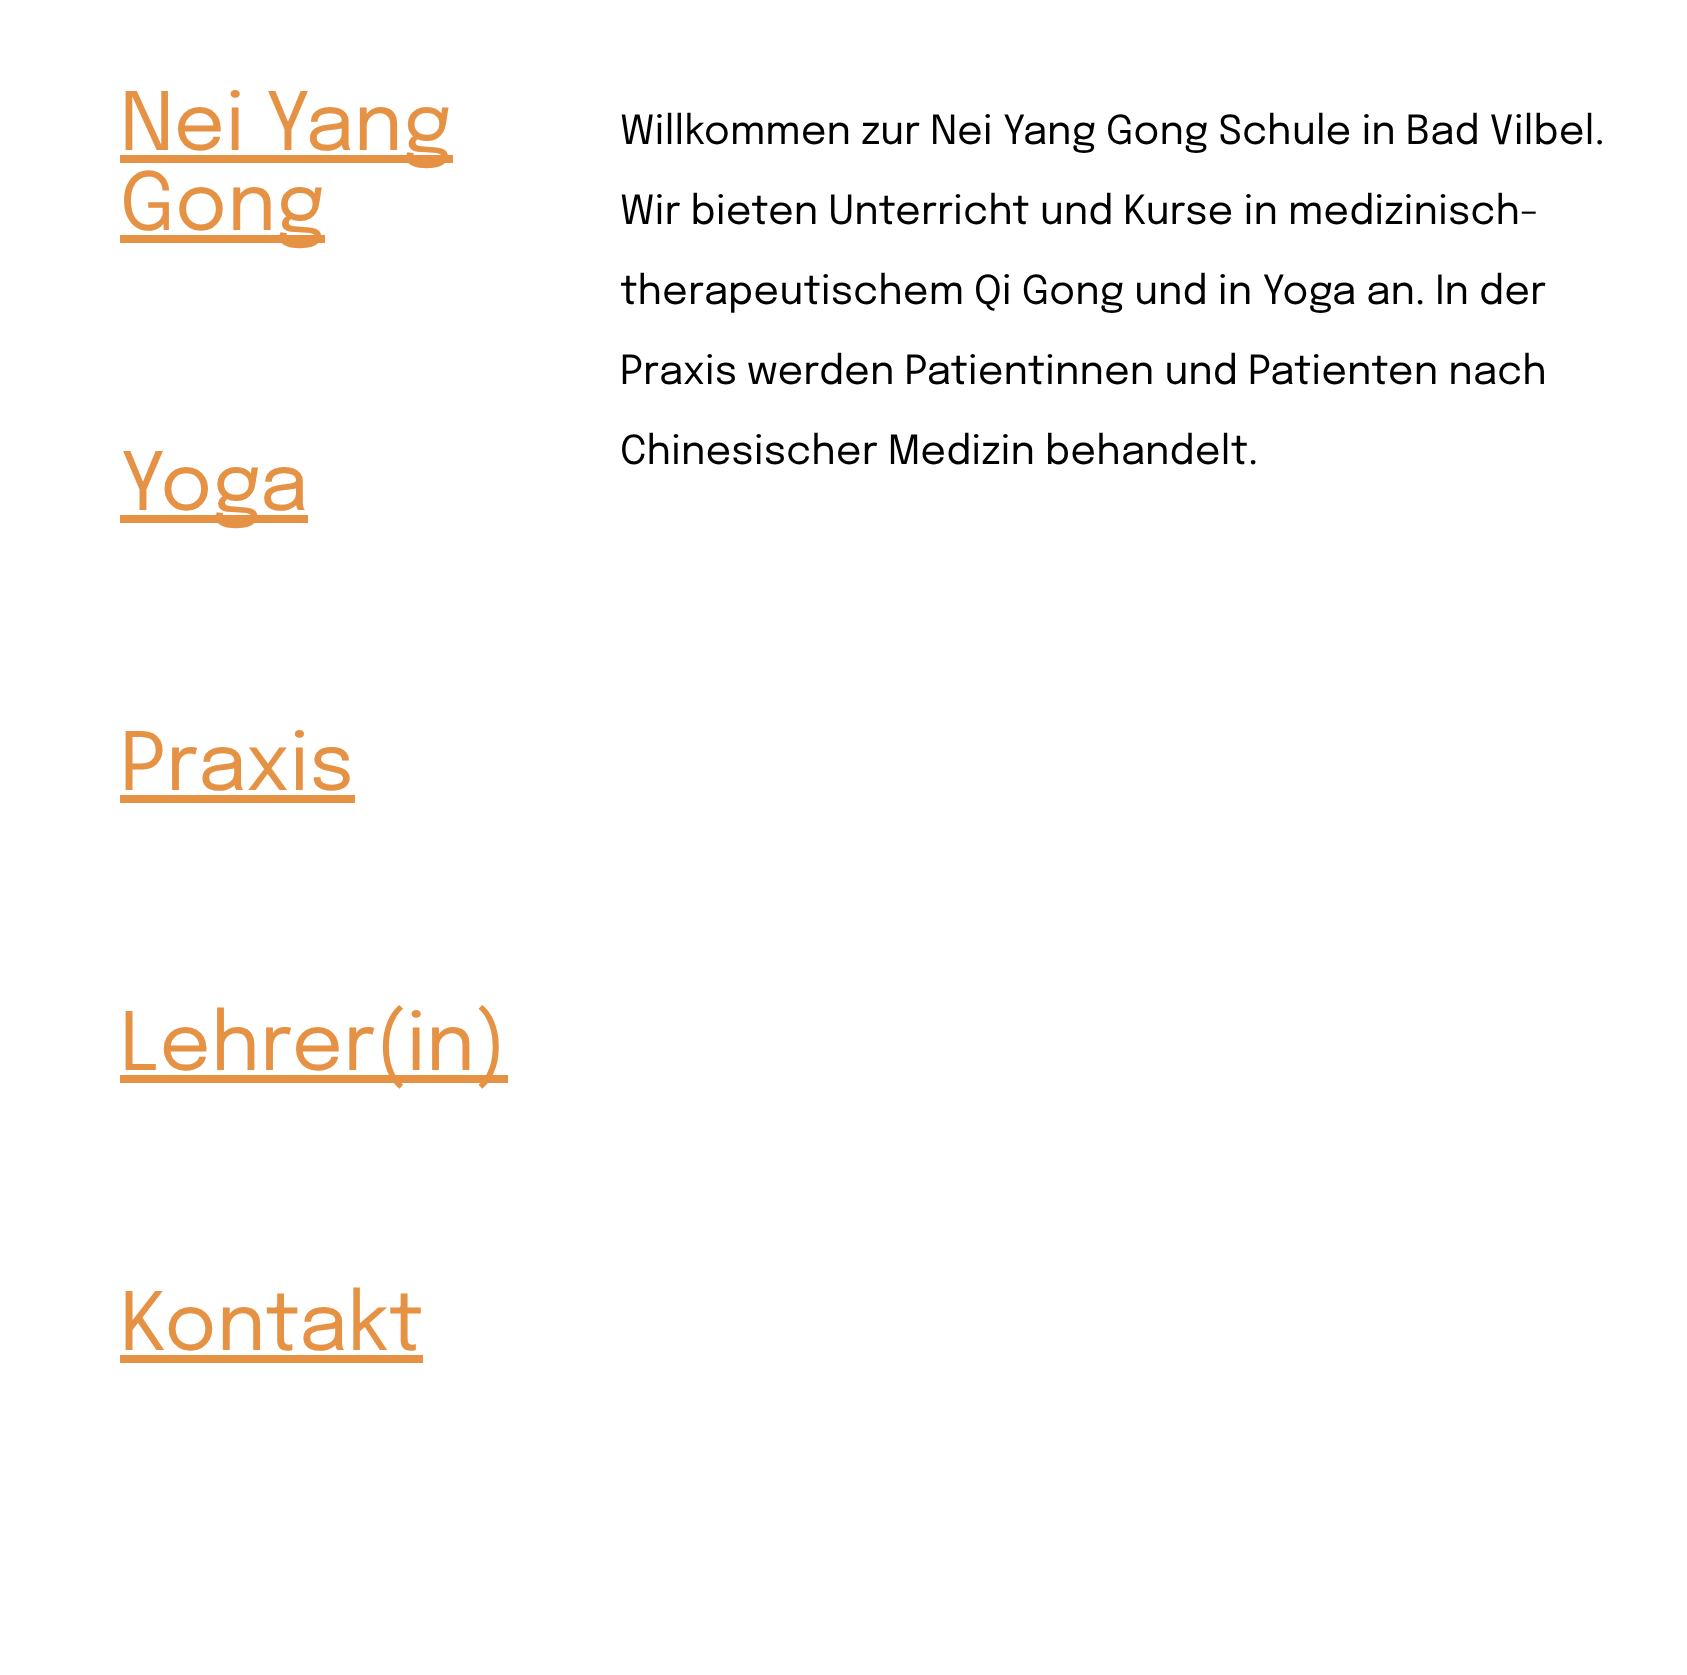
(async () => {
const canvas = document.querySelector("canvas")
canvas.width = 1687
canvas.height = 1675
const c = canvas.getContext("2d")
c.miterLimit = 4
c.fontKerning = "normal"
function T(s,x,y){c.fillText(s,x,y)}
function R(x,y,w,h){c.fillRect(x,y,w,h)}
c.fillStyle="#fff"
R(0,0,1687,1675)
c.fillStyle="#e69245"
R(120,155,333,8)
c.font="80px Epilogue"
T("Nei Yang",120,150)
R(120,235,205,8)
T("Gong",120,230)
R(120,515,188,8)
T("Yoga",120,510)
T("Praxis",120,790)
R(120,795,235,8)
R(120,1075,388,8)
T("Lehrer(in)",120,1070)
T("Kontakt",120,1350)
R(120,1355,303,8)
c.font="40px Epilogue"
c.fillStyle="#000"
T("Willkommen zur Nei Yang Gong Schule in Bad Vilbel.",620,144)
T("Wir bieten Unterricht und Kurse in medizinisch-",620,224)
T("therapeutischem Qi Gong und in Yoga an. In der",620,304)
T("Praxis werden Patientinnen und Patienten nach",620,384)
T("Chinesischer Medizin behandelt.",620,464)
})()
